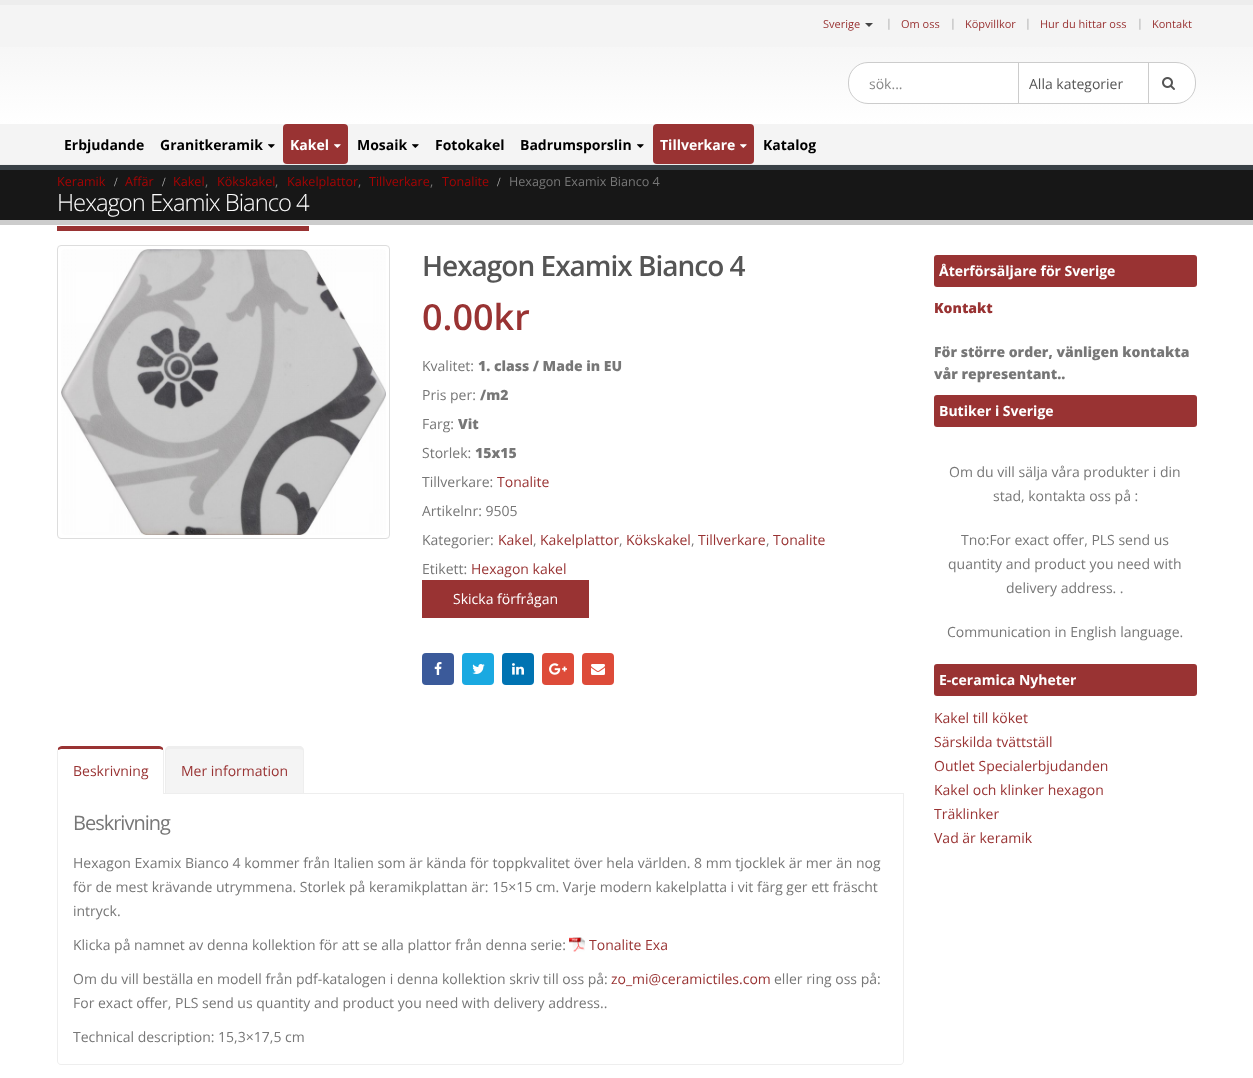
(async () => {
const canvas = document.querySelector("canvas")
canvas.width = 1253
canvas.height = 1078
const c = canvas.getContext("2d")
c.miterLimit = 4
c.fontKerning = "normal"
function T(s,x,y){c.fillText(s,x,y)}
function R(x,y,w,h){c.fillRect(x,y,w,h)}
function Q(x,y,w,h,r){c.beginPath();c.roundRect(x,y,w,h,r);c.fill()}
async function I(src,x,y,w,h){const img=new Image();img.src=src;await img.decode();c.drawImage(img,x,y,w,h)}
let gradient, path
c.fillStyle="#fff"
R(0,0,1253,1078)
c.fillStyle="#ededed"
R(0,0,1253,5)
c.fillStyle="#f4f4f4"
R(0,5,1253,159)
c.fillStyle="#ededed"
R(0,164,1253,1)
c.font="11px Open Sans"
c.fillStyle="#933"
T("Sverige",823,28)
c.fillStyle="#444"
path = new Path2D("M865 23h8l-4 4z")
c.fill(path)
c.font="300 11px Open Sans"
c.fillStyle="#777"
T("|",886,27)
c.font="11px Open Sans"
c.fillStyle="#933"
T("Om oss",901,28)
c.font="300 11px Open Sans"
c.fillStyle="#777"
T("|",950,27)
c.font="11px Open Sans"
c.fillStyle="#933"
T("Köpvillkor",965,28)
c.font="300 11px Open Sans"
c.fillStyle="#777"
T("|",1025,27)
c.font="11px Open Sans"
c.fillStyle="#933"
T("Hur du hittar oss",1040,28)
c.font="300 11px Open Sans"
c.fillStyle="#777"
T("|",1137,27)
c.font="11px Open Sans"
c.fillStyle="#933"
T("Kontakt",1152,28)
gradient = c.createLinearGradient(627,42,627,124)
gradient.addColorStop(0,"#f6f6f6")
gradient.addColorStop(1,"#fff")
c.fillStyle = gradient
R(0,47,1253,77)
c.fillStyle="#fff"
c.beginPath()
c.roundRect(848.5,62.5,347,41,19.5)
c.fill()
c.strokeStyle="#ccc"
c.stroke()
c.fillStyle="#ccc"
R(1018,63,1,40)
c.font="14px Open Sans"
c.fillStyle="#888"
T("sök...",869,89)
c.fillStyle="#ccc"
R(1148,63,1,40)
c.fillStyle="#555"
T("Alla kategorier",1029,89)
await I("1.png",1162,77,13,13)
c.font="bold 14px Open Sans"
c.fillStyle="#000"
T("Erbjudande",64,150)
T("Granitkeramik",160,150)
await I("2.png",268,144,7,4)
c.fillStyle="#933"
Q(283,124,65,40,4)
c.fillStyle="#fff"
T("Kakel",290,150)
await I("3.png",334,144,7,4)
c.fillStyle="#000"
T("Mosaik",357,150)
await I("2.png",412,144,7,4)
T("Fotokakel",435,150)
T("Badrumsporslin",520,150)
await I("2.png",637,144,7,4)
c.fillStyle="#933"
Q(653,124,101,40,4)
c.fillStyle="#fff"
T("Tillverkare",660,150)
await I("3.png",740,144,7,4)
c.fillStyle="#000"
T("Katalog",763,150)
c.fillStyle="#171717"
R(0,170,1253,50)
c.fillStyle="#384045"
R(0,165,1253,5)
c.fillStyle="#ccc"
R(0,220,1253,5)
c.font="12.6px Open Sans"
c.fillStyle="#a50404"
T("Keramik",57,186)
c.font="12.6px Liberation Serif"
c.fillStyle="#c3c3c3"
T("/",114,186)
c.font="12.6px Open Sans"
c.fillStyle="#a50404"
T("Affär",125,186)
c.font="12.6px Liberation Serif"
c.fillStyle="#c3c3c3"
T("/",162,186)
c.font="12.6px Open Sans"
c.fillStyle="#a50404"
T("Kakel",173,186)
c.fillStyle="#777"
T(",",205,186)
c.fillStyle="#a50404"
T("Kökskakel",217,186)
c.fillStyle="#777"
T(",",275,186)
c.fillStyle="#a50404"
T("Kakelplattor",287,186)
c.fillStyle="#777"
T(",",358,186)
c.fillStyle="#a50404"
T("Tillverkare",369,186)
c.fillStyle="#777"
T(",",430,186)
c.fillStyle="#a50404"
T("Tonalite",442,186)
c.font="12.6px Liberation Serif"
c.fillStyle="#c3c3c3"
T("/",497,186)
c.font="12.6px Open Sans"
c.fillStyle="#777"
T("Hexagon Examix Bianco 4",509,186)
c.fillStyle="#933"
R(57,226,252,5)
c.letterSpacing="-1px"
c.font="300 23.75px Open Sans"
c.fillStyle="#fff"
T("Hexagon Examix Bianco 4",57,211)
c.beginPath()
c.roundRect(57.5,245.5,332,293,3.5)
c.strokeStyle="#ddd"
c.stroke()
await I("4.png",61,249,325,286)
c.font="600 28px Open Sans"
c.fillStyle="#555"
T("Hexagon Examix Bianco 4",422,276)
c.letterSpacing="0px"
c.font="600 36px Open Sans"
c.fillStyle="#933"
T("0.00kr",422,330)
c.font="14px Open Sans"
c.fillStyle="#777"
T("Kvalitet:",422,371)
c.font="800 14px Open Sans"
T("1. class / Made in EU",478,371)
c.font="14px Open Sans"
T("Pris per:",422,400)
c.font="800 14px Open Sans"
T("/m2",480,400)
c.font="14px Open Sans"
T("Farg:",422,429)
c.font="800 14px Open Sans"
T("Vit",458,429)
c.font="14px Open Sans"
T("Storlek:",422,458)
c.font="800 14px Open Sans"
T("15x15",475,458)
c.font="14px Open Sans"
T("Tillverkare:",422,487)
c.fillStyle="#933"
T("Tonalite",497,487)
c.fillStyle="#777"
T("Artikelnr: 9505",422,516)
T("Kategorier:",422,545)
c.fillStyle="#933"
T("Kakel",498,545)
c.fillStyle="#777"
T(",",533,545)
c.fillStyle="#933"
T("Kakelplattor",540,545)
c.fillStyle="#777"
T(",",619,545)
c.fillStyle="#933"
T("Kökskakel",626,545)
c.fillStyle="#777"
T(",",691,545)
c.fillStyle="#933"
T("Tillverkare",698,545)
c.fillStyle="#777"
T(",",766,545)
c.fillStyle="#933"
T("Tonalite",773,545)
c.fillStyle="#777"
T("Etikett:",422,574)
c.fillStyle="#933"
T("Hexagon kakel",471,574)
R(422,580,167,38)
c.fillStyle="#fff"
T("Skicka förfrågan",453,604)
c.fillStyle="#3b5a9a"
Q(422,653,32,32,4)
await I("5.png",434,662,8,13)
c.fillStyle="#1aa9e1"
Q(462,653,32,32,4)
await I("6.png",472,664,13,10)
c.fillStyle="#0073b2"
Q(502,653,32,32,4)
await I("7.png",512,663,12,12)
c.fillStyle="#dd4b39"
Q(542,653,32,32,4)
await I("8.png",549,663,18,12)
Q(582,653,32,32,4)
await I("9.png",591,664,14,11)
c.fillStyle="#eee"
R(164,793,740,1)
c.fillStyle="#933"
path = new Path2D("M62 746c-2 0-3 1-4 2v2l3-1h99l3 1v-2c-1-1-2-2-4-2z")
c.fill(path)
c.fillStyle="#eee"
path = new Path2D("M163 794h1v-43l-1-3v2c0 1 0 39 0 44z")
c.fill(path)
path = new Path2D("M57 794h1c0-5 0-43 0-44v-2l-1 3z")
c.fill(path)
c.fillStyle="#933"
T("Beskrivning",73,776)
c.fillStyle="#f4f4f4"
c.beginPath()
c.roundRect(165,746,139,47,[5,5,0,0])
c.fill()
c.fillStyle="#eee"
path = new Path2D("M170 746h129c3 0 5 2 5 5v42h-139v-42c0-3 2-5 5-5zm0 3h129c2 0 4 1 4 2v42h-137v-42c0-1 2-2 4-2z")
c.fill(path,"evenodd")
c.fillStyle="#933"
T("Mer information",181,776)
c.fillStyle="#eee"
path = new Path2D("M57 794h847v267c0 2-2 4-4 4h-839c-2 0-4-2-4-4zm1 0h845v267c0 2-1 3-3 3h-839c-2 0-3-1-3-3z")
c.fill(path,"evenodd")
c.letterSpacing="-1px"
c.font="20px Open Sans"
c.fillStyle="#777"
T("Beskrivning",73,830)
c.letterSpacing="0px"
c.font="14px Open Sans"
T("Hexagon Examix Bianco 4 kommer från Italien som är kända för toppkvalitet över hela världen. 8 mm tjocklek är mer än nog",73,868)
T("för de mest krävande utrymmena. Storlek på keramikplattan är: 15×15 cm. Varje modern kakelplatta i vit färg ger ett fräscht",73,892)
T("intryck.",73,916)
T("Klicka på namnet av denna kollektion för att se alla plattor från denna serie:",73,950)
await I("10.png",569,937,16,15)
c.fillStyle="#933"
T("Tonalite Exa",589,950)
c.fillStyle="#777"
T("Om du vill beställa en modell från pdf-katalogen i denna kollektion skriv till oss på:",73,984)
c.fillStyle="#933"
T("zo_mi@ceramictiles.com",611,984)
c.fillStyle="#777"
T("eller ring oss på:",774,984)
T("For exact offer, PLS send us quantity and product you need with delivery address..",73,1008)
T("Technical description: 15,3×17,5 cm",73,1042)
c.fillStyle="#933"
Q(934,255,263,32,3)
c.font="bold 14px Open Sans"
c.fillStyle="#fff"
T("Återförsäljare för Sverige",939,276)
c.font="800 14px Open Sans"
c.fillStyle="#933"
T("Kontakt",934,313)
c.fillStyle="#777"
T("För större order, vänligen kontakta",934,357)
T("vår representant..",934,379)
c.fillStyle="#933"
Q(934,395,263,32,3)
c.font="bold 14px Open Sans"
c.fillStyle="#fff"
T("Butiker i Sverige",939,416)
c.font="14px Open Sans"
c.fillStyle="#777"
T("Om du vill sälja våra produkter i din",949,477)
T("stad, kontakta oss på :",993,501)
T("Tno:For exact offer, PLS send us",961,545)
T("quantity and product you need with",948,569)
T("delivery address. .",1006,593)
T("Communication in English language.",947,637)
c.fillStyle="#933"
Q(934,664,263,32,3)
c.font="bold 14px Open Sans"
c.fillStyle="#fff"
T("E-ceramica Nyheter",939,685)
c.font="14px Open Sans"
c.fillStyle="#933"
T("Kakel till köket",934,723)
T("Särskilda tvättställ",934,747)
T("Outlet Specialerbjudanden",934,771)
T("Kakel och klinker hexagon",934,795)
T("Träklinker",934,819)
T("Vad är keramik",934,843)
})()
